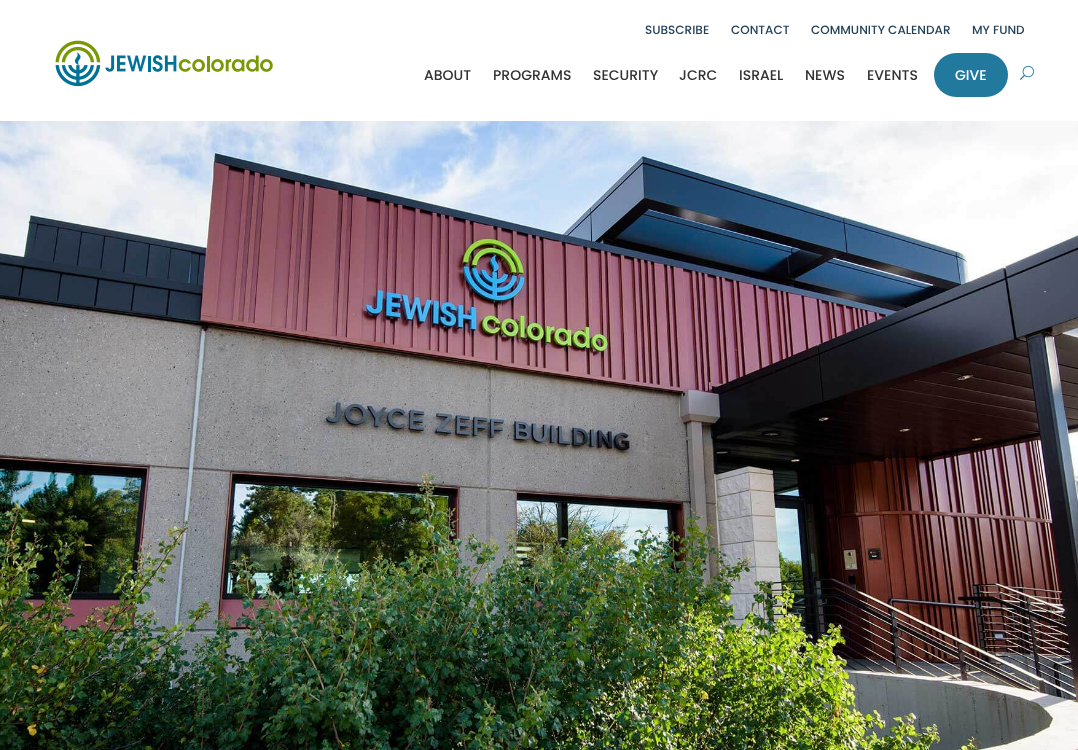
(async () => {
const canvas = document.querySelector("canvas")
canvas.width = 1078
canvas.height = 750
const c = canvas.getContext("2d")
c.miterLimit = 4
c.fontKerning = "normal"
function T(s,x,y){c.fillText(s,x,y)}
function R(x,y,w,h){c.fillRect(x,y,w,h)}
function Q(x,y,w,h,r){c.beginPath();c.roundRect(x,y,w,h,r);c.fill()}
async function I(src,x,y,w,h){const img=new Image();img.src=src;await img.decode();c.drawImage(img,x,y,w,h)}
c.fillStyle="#fff"
R(0,0,1078,750)
c.font="500 12px Poppins"
c.fillStyle="#24435b"
T("SUBSCRIBE",645,34)
T("CONTACT",731,34)
T("COMMUNITY CALENDAR",811,34)
T("MY FUND",972,34)
await I("1.png",55,40,218,47)
c.font="500 14px Poppins"
c.fillStyle="#333"
T("ABOUT",424,80)
T("PROGRAMS",493,80)
T("SECURITY",593,80)
T("JCRC",679,80)
T("ISRAEL",739,80)
T("NEWS",805,80)
T("EVENTS",867,80)
c.fillStyle="#22799e"
Q(934,53,74,44,22)
c.fillStyle="#fff"
T("GIVE",955,80)
await I("2.png",1020,65,14,15)
await I("3.png",0,121,1078,629)
})()
